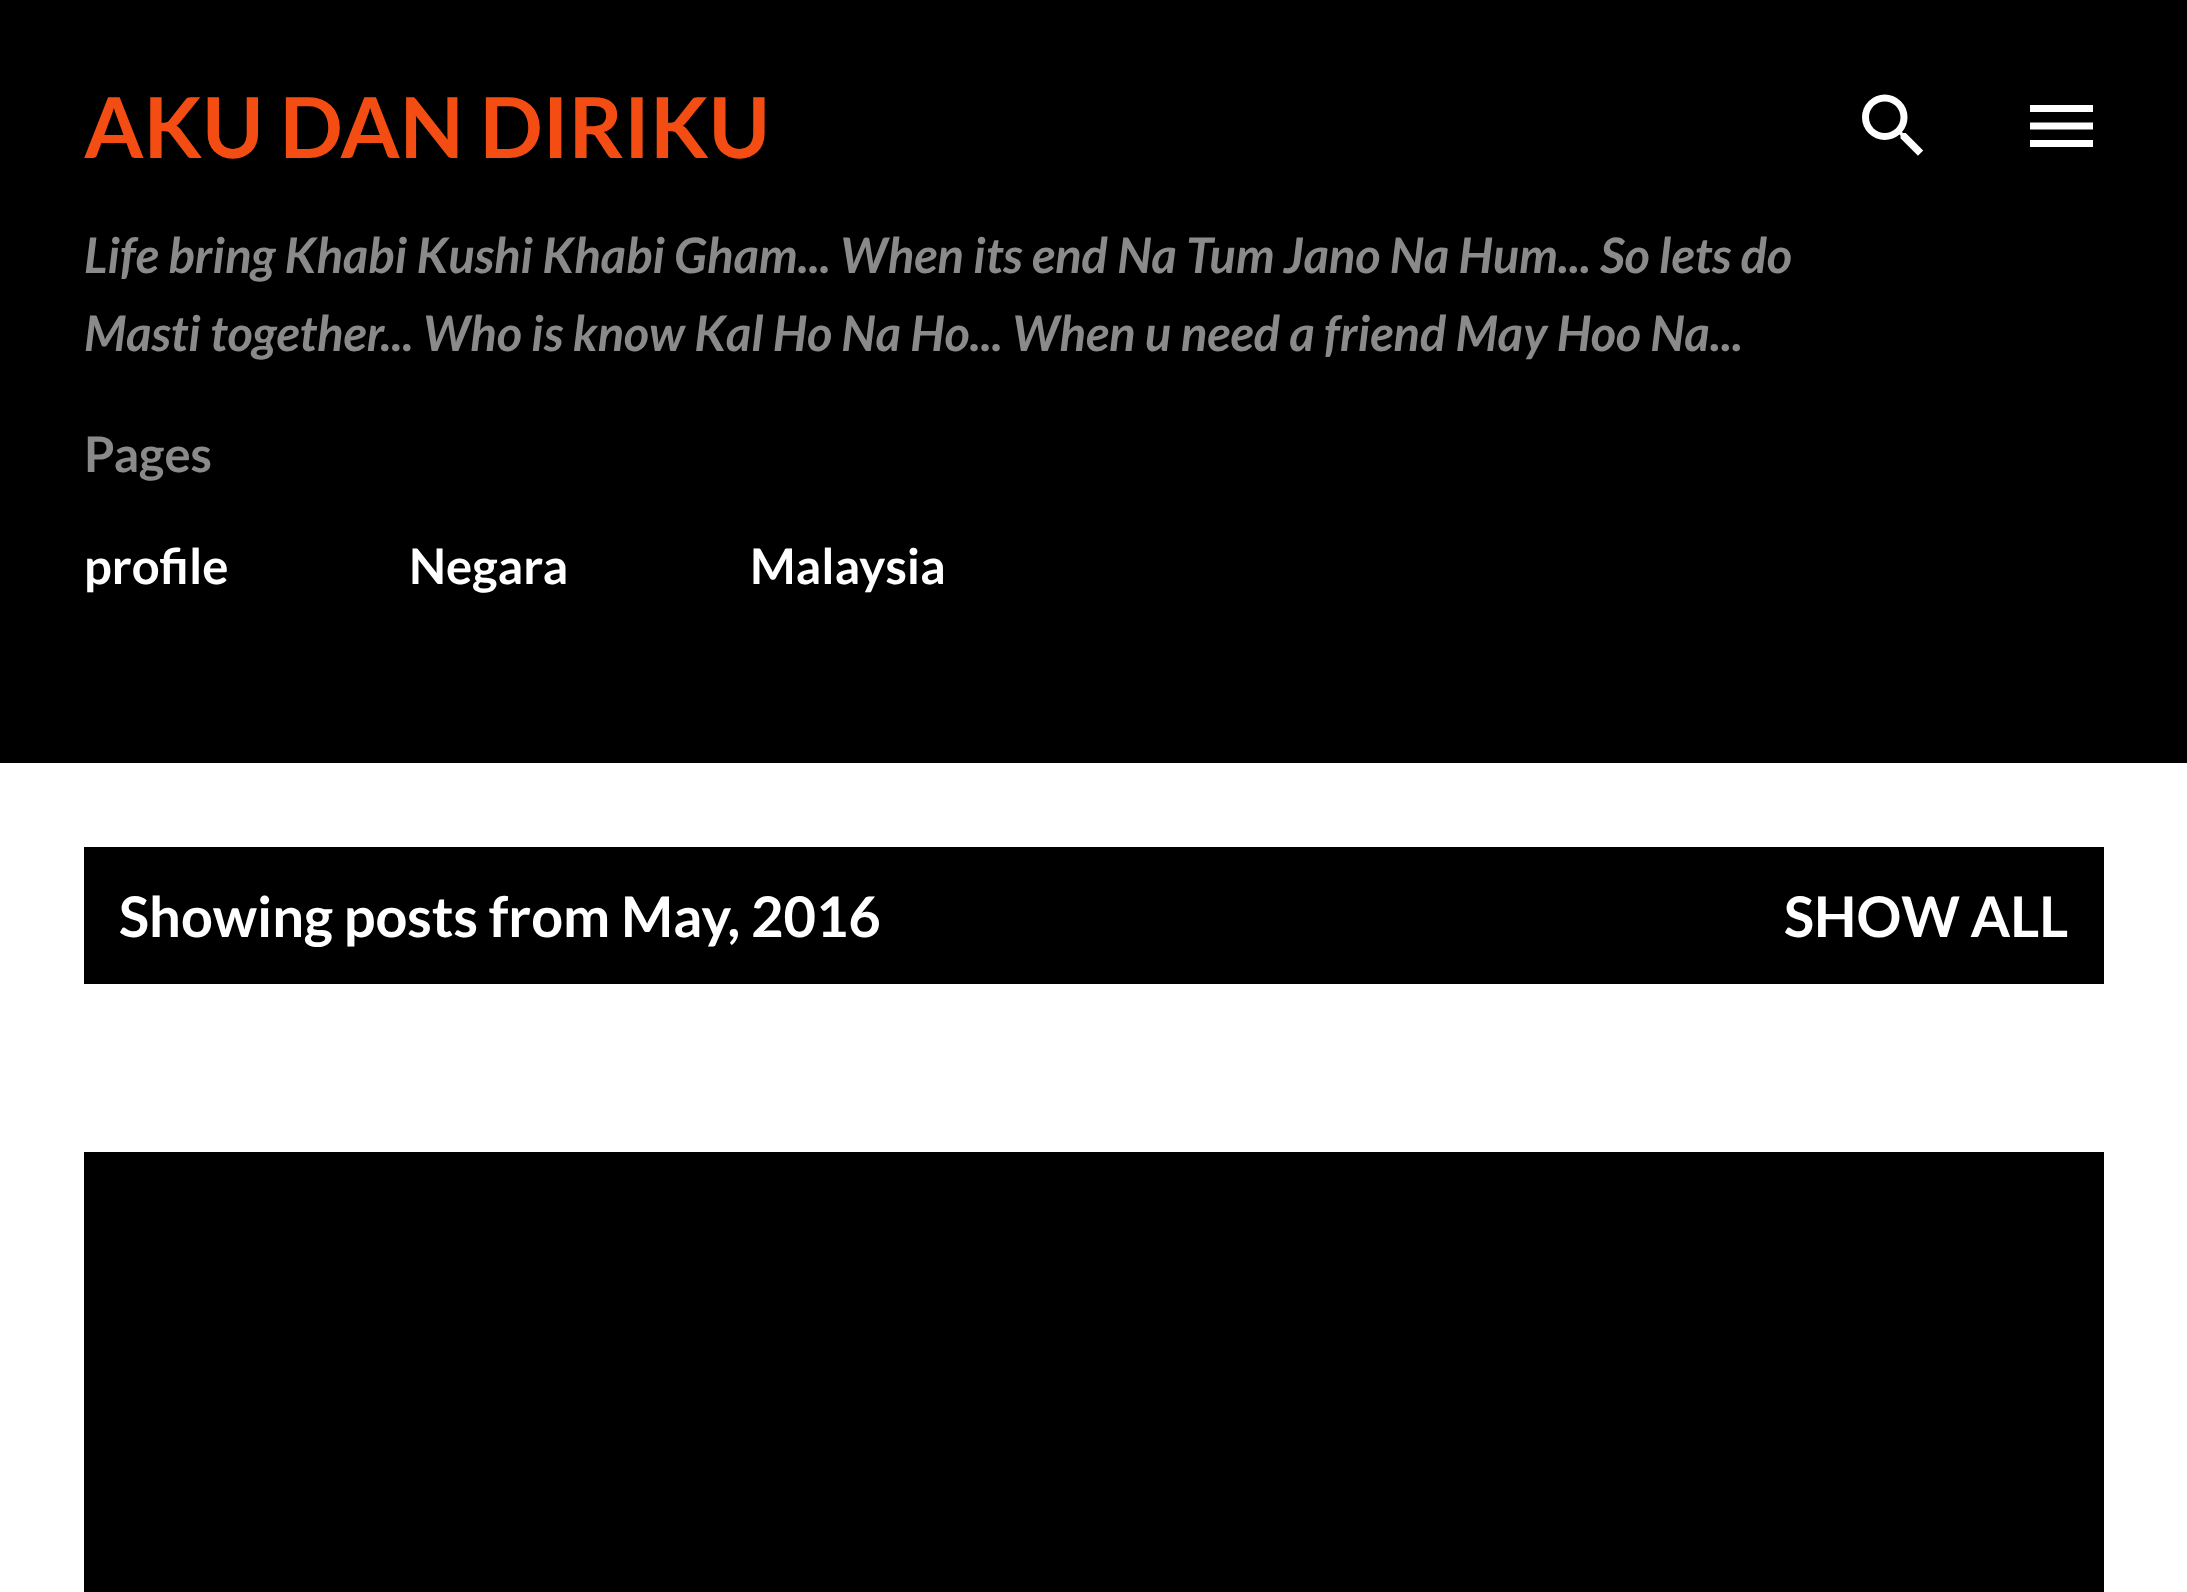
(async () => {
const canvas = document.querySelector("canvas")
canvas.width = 2187
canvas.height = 1592
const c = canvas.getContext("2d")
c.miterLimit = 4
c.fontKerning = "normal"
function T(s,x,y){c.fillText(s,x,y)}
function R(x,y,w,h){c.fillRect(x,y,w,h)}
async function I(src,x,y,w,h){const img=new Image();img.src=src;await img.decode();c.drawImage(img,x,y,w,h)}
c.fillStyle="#fff"
R(0,0,2187,1592)
c.fillStyle="#000"
R(0,0,2187,763)
c.font="bold 84px Lato"
c.fillStyle="#f44d14"
T("AKU DAN DIRIKU",84,158)
c.font="italic bold 49px Lato"
c.fillStyle="#8a8a8a"
T("Life bring Khabi Kushi Khabi Gham... When its end Na Tum Jano Na Hum... So lets do",84,273)
T("Masti together... Who is know Kal Ho Na Ho... When u need a friend May Hoo Na...",84,351)
await I("1.png",1862,94,62,62)
await I("2.png",2030,105,63,42)
c.font="bold 49px Lato"
T("Pages",84,472)
c.fillStyle="#fff"
T("profile",84,584)
T("Negara",409,584)
T("Malaysia",750,584)
c.fillStyle="#000"
R(84,847,2020,137)
c.font="bold 56px Lato"
c.fillStyle="#fff"
T("Showing posts from May, 2016",119,937)
T("SHOW ALL",1784,937)
c.fillStyle="#000"
R(84,1152,2020,440)
})()
